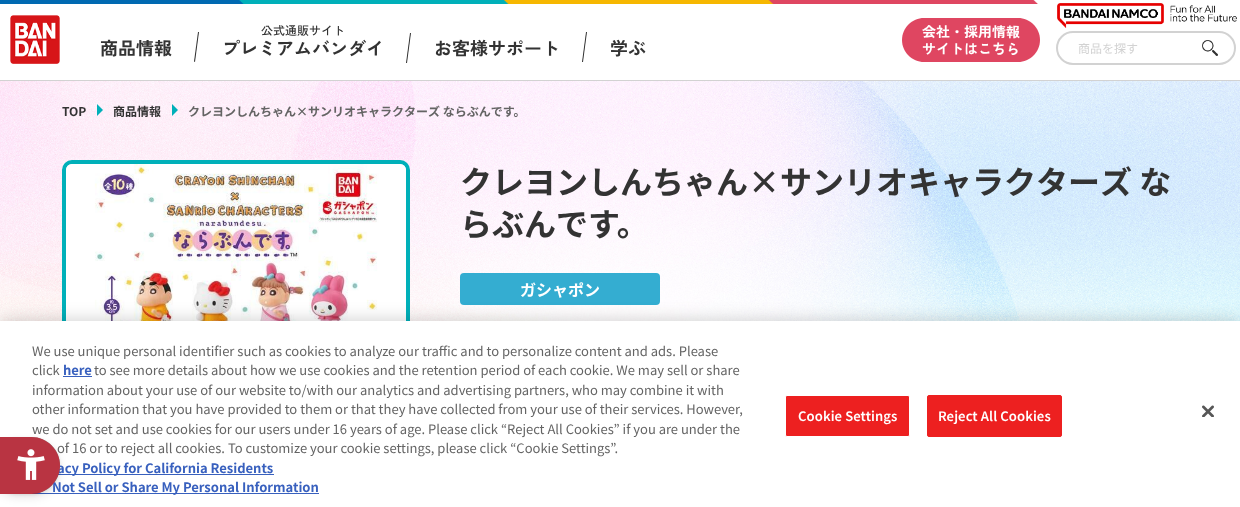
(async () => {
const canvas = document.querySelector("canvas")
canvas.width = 1240
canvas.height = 507
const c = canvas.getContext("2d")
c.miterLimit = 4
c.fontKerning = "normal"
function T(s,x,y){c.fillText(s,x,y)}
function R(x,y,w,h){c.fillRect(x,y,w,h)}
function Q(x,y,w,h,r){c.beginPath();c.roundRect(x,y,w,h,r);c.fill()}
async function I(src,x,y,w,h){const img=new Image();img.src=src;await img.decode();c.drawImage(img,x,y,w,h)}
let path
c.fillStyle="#fff"
R(0,0,1240,507)
c.fillStyle="#d2d2d2"
R(0,80,1240,1)
await I("1.png",0,0,1038,4)
await I("2.png",10,15,50,49)
c.font="bold 18px Zen Kaku Gothic New"
c.fillStyle="#333"
c.save()
c.translate(100,55)
c.rotate(0.1 * Math.PI / 180)
c.fillText("商品情報",0,0)
c.restore()
c.fillStyle="#323232"
path = new Path2D("M198 32h1l-4 30l-1-.5z")
c.fill(path)
c.font="500 12px Zen Kaku Gothic New"
c.fillStyle="#333"
c.save()
c.translate(261,35)
c.rotate(0.1 * Math.PI / 180)
c.fillText("公式通販サイト",0,0)
c.restore()
c.font="bold 18px Zen Kaku Gothic New"
c.save()
c.translate(222,55)
c.rotate(0.1 * Math.PI / 180)
c.fillText("プレミアムバンダイ",0,0)
c.restore()
c.fillStyle="#323232"
path = new Path2D("M410 33h1l-4 30h-1z")
c.fill(path)
c.fillStyle="#333"
c.save()
c.translate(434,55)
c.rotate(0.1 * Math.PI / 180)
c.fillText("お客様サポート",0,0)
c.restore()
c.fillStyle="#323232"
path = new Path2D("M586 32h1l-4 30h-1z")
c.fill(path)
c.fillStyle="#333"
c.save()
c.translate(610,55)
c.rotate(0.1 * Math.PI / 180)
c.fillText("学ぶ",0,0)
c.restore()
c.fillStyle="#df4661"
path = new Path2D("M924 18h94c12 0 22 10 22 22c0 12-10 22-22 22h-94c-12 0-22-10-22-22c0-12 10-22 22-22z")
c.fill(path)
c.font="bold 14px Zen Kaku Gothic New"
c.fillStyle="#fff"
c.save()
c.translate(922,37)
c.rotate(0.1 * Math.PI / 180)
c.fillText("会社・採用情報",0,0)
c.restore()
c.save()
c.translate(922,54)
c.rotate(0.1 * Math.PI / 180)
c.fillText("サイトはこちら",0,0)
c.restore()
await I("3.png",1057,3,180,25)
c.beginPath()
c.roundRect(1057,32,178,32,16)
c.strokeStyle="#d2d2d2"
c.lineWidth=2
c.stroke()
c.font="12px Noto Sans JP"
c.fillStyle="#d2d2d2"
T("商品を探す",1078,53)
await I("4.png",1202,40,16,16)
await I("5.png",0,81,1240,240)
c.font="bold 12px Noto Sans JP"
c.fillStyle="#333"
T("TOP",62,116)
c.fillStyle="#00b0b9"
path = new Path2D("M97 116v-12l6 6z")
c.fill(path)
c.fillStyle="#333"
T("商品情報",113,116)
c.fillStyle="#00b0b9"
path = new Path2D("M172 116v-12l6 6z")
c.fill(path)
c.fillStyle="#646464"
T("クレヨンしんちゃん×サンリオキャラクターズ ならぶんです。",188,116)
c.beginPath()
c.roundRect(64,162,344,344,8)
c.strokeStyle="#00b0b9"
c.lineWidth=4
c.stroke()
await I("6.png",66,164,340,157)
c.font="bold 32px Noto Sans JP"
c.fillStyle="#333"
T("クレヨンしんちゃん×サンリオキャラクターズ な",460,194)
T("らぶんです。",460,236)
c.fillStyle="#34add1"
Q(460,273,200,32,4)
c.font="bold 16px Noto Sans JP"
c.fillStyle="#fff"
T("ガシャポン",520,296)
c.fillStyle="#00000033"
c.filter="blur(9px)"
c.beginPath()
c.rect(0,321,1240,186)
c.fill()
c.filter="none"
c.fillStyle="#fff"
R(0,321,1240,186)
c.fillStyle="#3860be"
R(58,474,216,1)
R(32,493,287,1)
c.fillStyle="#00000017"
c.filter="blur(4px)"
c.beginPath()
c.roundRect(-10,441,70,57,28.5)
c.fill()
c.filter="none"
c.filter="blur(1.5px)"
c.beginPath()
c.roundRect(-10,438,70,57,28.5)
c.fill()
c.filter="none"
c.fillStyle="#00000066"
c.filter="blur(0.5px)"
c.beginPath()
c.roundRect(-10,437,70,57,28.5)
c.fill()
c.filter="none"
c.font="13px Noto Sans JP"
c.fillStyle="#646464"
T("we do not set and use cookies for our users under 16 years of age. Please click “Reject All Cookies” if you are under the",32,434)
T("of 16 or to reject all cookies. To customize your cookie settings, please click “Cookie Settings”.",57,453)
c.font="bold 13px Noto Sans JP"
c.fillStyle="#3860be"
T("acy Policy for California Residents",57,473)
T("Not Sell or Share My Personal Information",52,492)
c.fillStyle="#b93442"
path = new Path2D("M-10 437h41.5c15.5 0 28.5 13 28.5 28.5c0 15.5-13 28.5-28.5 28.5h-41.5z")
c.fill(path)
await I("7.png",17,449,28,31)
c.font="13px Noto Sans JP"
c.fillStyle="#646464"
T("We use unique personal identifier such as cookies to analyze our traffic and to personalize content and ads. Please",32,356)
T("click",32,375)
c.font="bold 13px Noto Sans JP"
c.fillStyle="#3860be"
T("here",63,375)
R(63,376,29,1)
c.font="13px Noto Sans JP"
c.fillStyle="#646464"
T("to see more details about how we use cookies and the retention period of each cookie. We may sell or share",94,375)
T("information about your use of our website to/with our analytics and advertising partners, who may combine it with",32,395)
T("other information that you have provided to them or that they have collected from your use of their services. However,",32,414)
c.fillStyle="#ed2020"
c.beginPath()
c.roundRect(785.5,395.5,124,41,1.5)
c.fill()
c.strokeStyle="#fff"
c.lineWidth=1
c.stroke()
c.letterSpacing="0.1px"
c.font="600 13px Noto Sans JP"
c.fillStyle="#fff"
T("Cookie Settings",798,421)
c.fillStyle="#ed2020"
c.beginPath()
c.roundRect(927.5,395.5,134,41,1.5)
c.fill()
c.strokeStyle="#ed2020"
c.stroke()
c.fillStyle="#fff"
T("Reject All Cookies",938,421)
await I("8.png",1202,405,12,12)
})()
